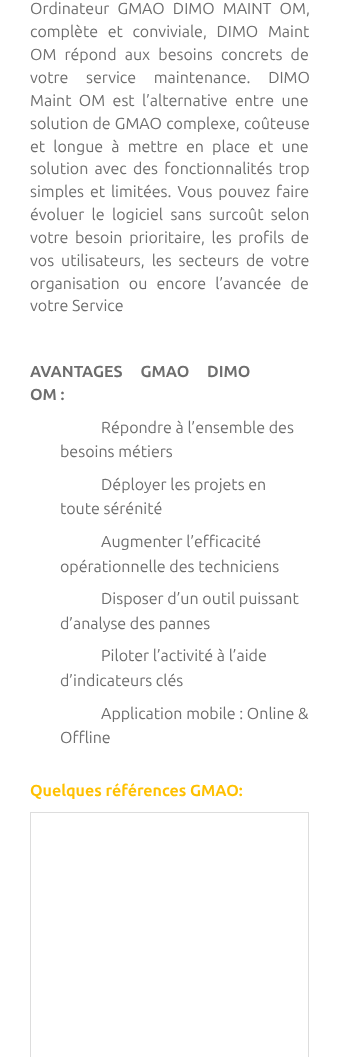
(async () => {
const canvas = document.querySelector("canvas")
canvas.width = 339
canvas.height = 1057
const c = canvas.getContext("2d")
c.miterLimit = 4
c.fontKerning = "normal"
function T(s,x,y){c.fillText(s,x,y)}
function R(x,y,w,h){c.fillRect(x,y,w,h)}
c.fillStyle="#fff"
R(0,0,339,1057)
c.wordSpacing="4.5px"
c.font="16px Ubuntu"
c.fillStyle="#6e6e6e"
T("Ordinateur GMAO DIMO MAINT OM,",30,14)
c.wordSpacing="6px"
T("complète et conviviale, DIMO Maint",30,37)
c.wordSpacing="4.5px"
T("OM répond aux besoins concrets de",30,60)
c.wordSpacing="14px"
T("votre service maintenance. DIMO",30,83)
c.wordSpacing="3.75px"
T("Maint OM est l’alternative entre une",30,106)
c.wordSpacing="0.5px"
T("solution de GMAO complexe, coûteuse",30,129)
c.wordSpacing="4.5px"
T("et longue à mettre en place et une",30,152)
c.wordSpacing="2.5px"
T("solution avec des fonctionnalités trop",30,174)
c.wordSpacing="2.25px"
T("simples et limitées. Vous pouvez faire",30,197)
c.wordSpacing="3.75px"
T("évoluer le logiciel sans surcoût selon",30,220)
c.wordSpacing="3px"
T("votre besoin prioritaire, les profils de",30,243)
c.wordSpacing="3.25px"
T("vos utilisateurs, les secteurs de votre",30,266)
c.wordSpacing="5.5px"
T("organisation ou encore l’avancée de",30,289)
c.wordSpacing="0px"
T("votre Service",30,311)
c.wordSpacing="14px"
c.font="bold 16px Ubuntu"
T("AVANTAGES GMAO DIMO",30,377)
c.wordSpacing="0px"
T("OM :",30,400)
c.font="16px Ubuntu"
T("Répondre à l’ensemble des",101,433)
T("besoins métiers",60,457)
T("Déployer les projets en",101,490)
T("toute sérénité",60,514)
T("Augmenter l’efficacité",101,547)
T("opérationnelle des techniciens",60,572)
T("Disposer d’un outil puissant",101,604)
T("d’analyse des pannes",60,629)
T("Piloter l’activité à l’aide",101,661)
T("d’indicateurs clés",60,686)
T("Application mobile : Online &",101,719)
T("Offline",60,743)
c.font="bold 16px Ubuntu"
c.fillStyle="#ffc000"
T("Quelques références GMAO:",30,796)
c.strokeStyle="#ddd"
c.strokeRect(30.5,812.5,278,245)
})()
